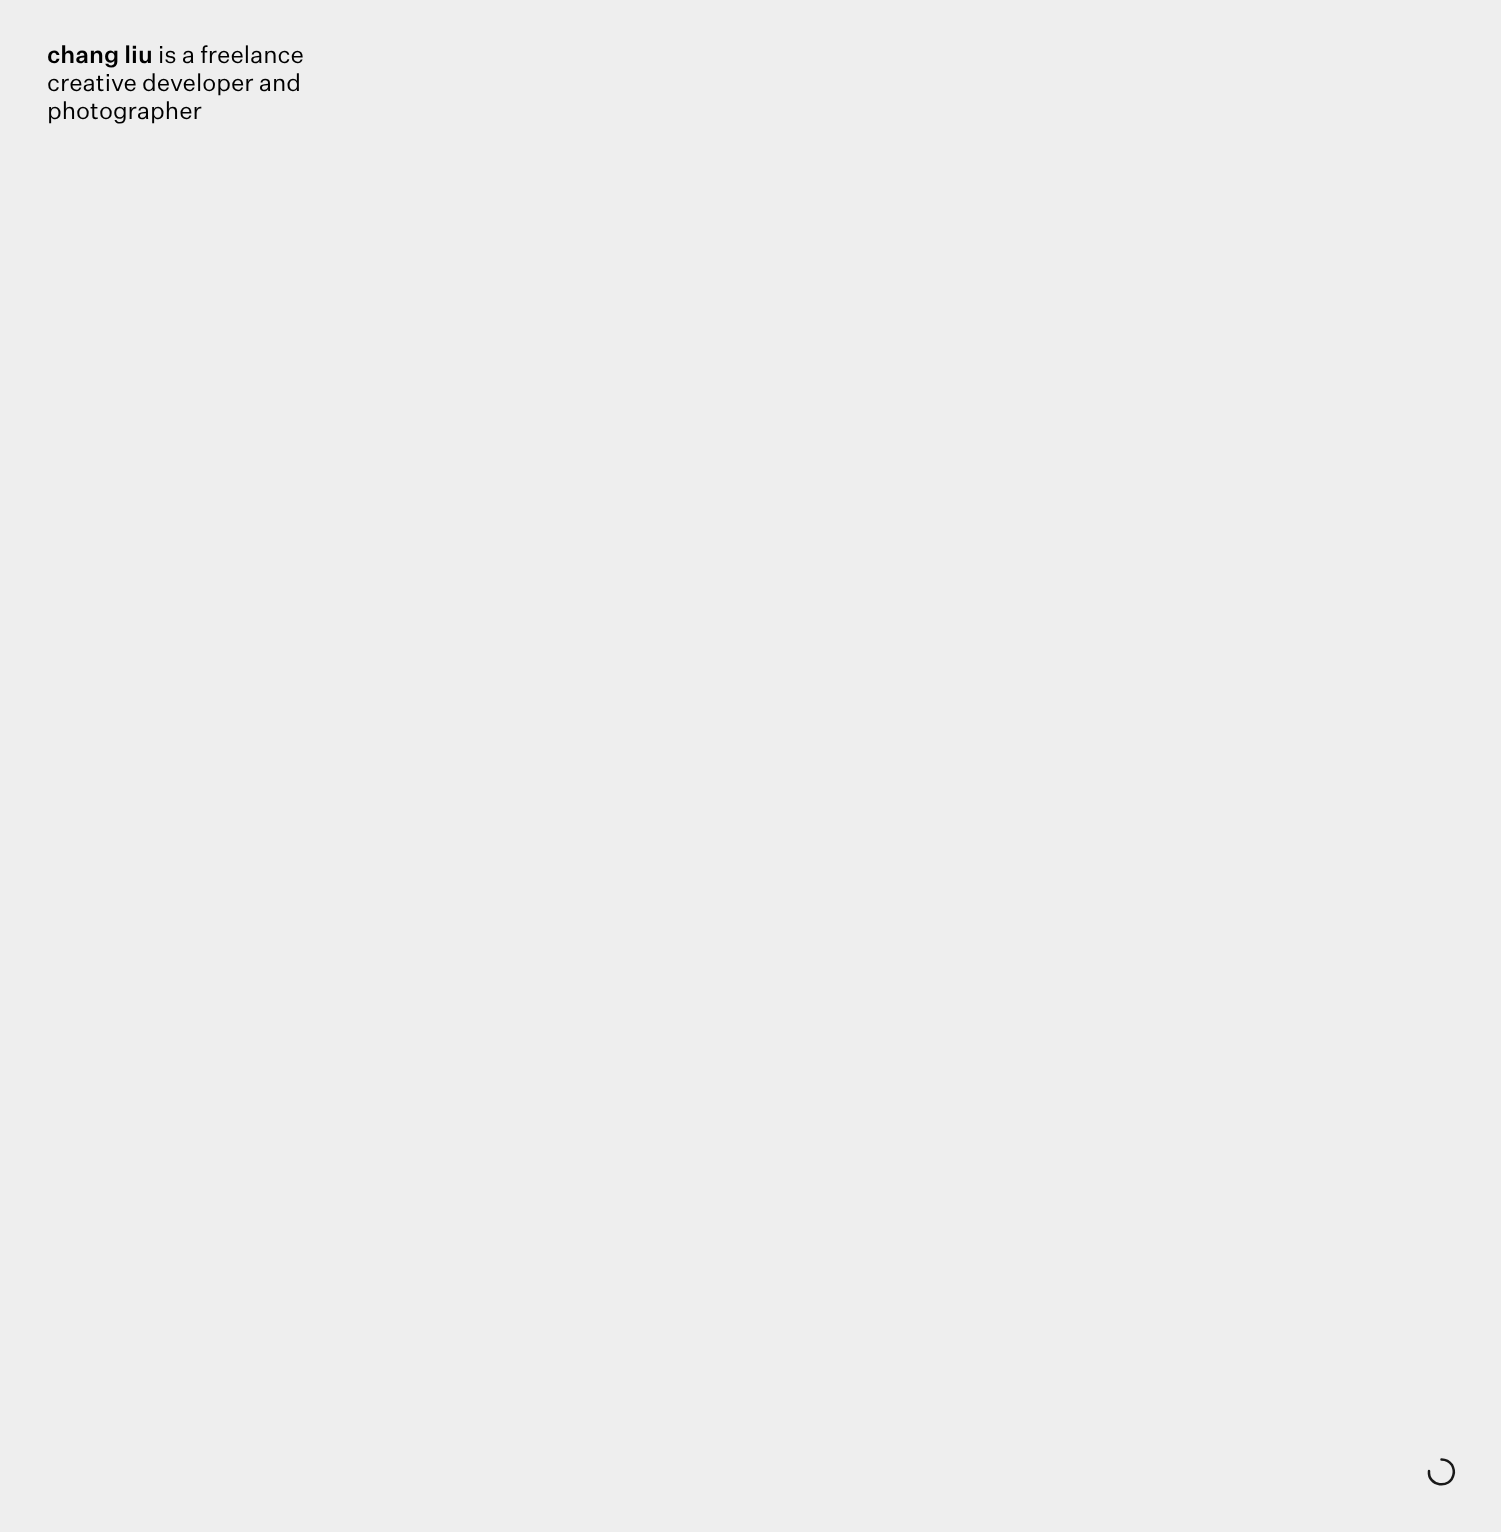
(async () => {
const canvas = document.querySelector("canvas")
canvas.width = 1501
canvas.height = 1532
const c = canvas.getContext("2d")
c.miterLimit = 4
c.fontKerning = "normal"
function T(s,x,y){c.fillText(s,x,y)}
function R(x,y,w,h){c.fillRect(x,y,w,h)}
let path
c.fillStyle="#eee"
R(0,0,1501,1532)
c.font="500 24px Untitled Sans"
c.fillStyle="#000"
T("chang liu",47,63)
c.font="24px Untitled Sans"
T("is a freelance",158,63)
T("creative developer and",47,91)
T("photographer",47,119)
path = new Path2D("M1441.5 1459.5c4 0 8 2 10.5 5.5c1.5 3 2.5 6 1.5 9.5c-3 15-26 12-24.5-3.5")
c.strokeStyle="#191919"
c.lineWidth=2.5
c.lineCap="round"
c.stroke(path)
})()
